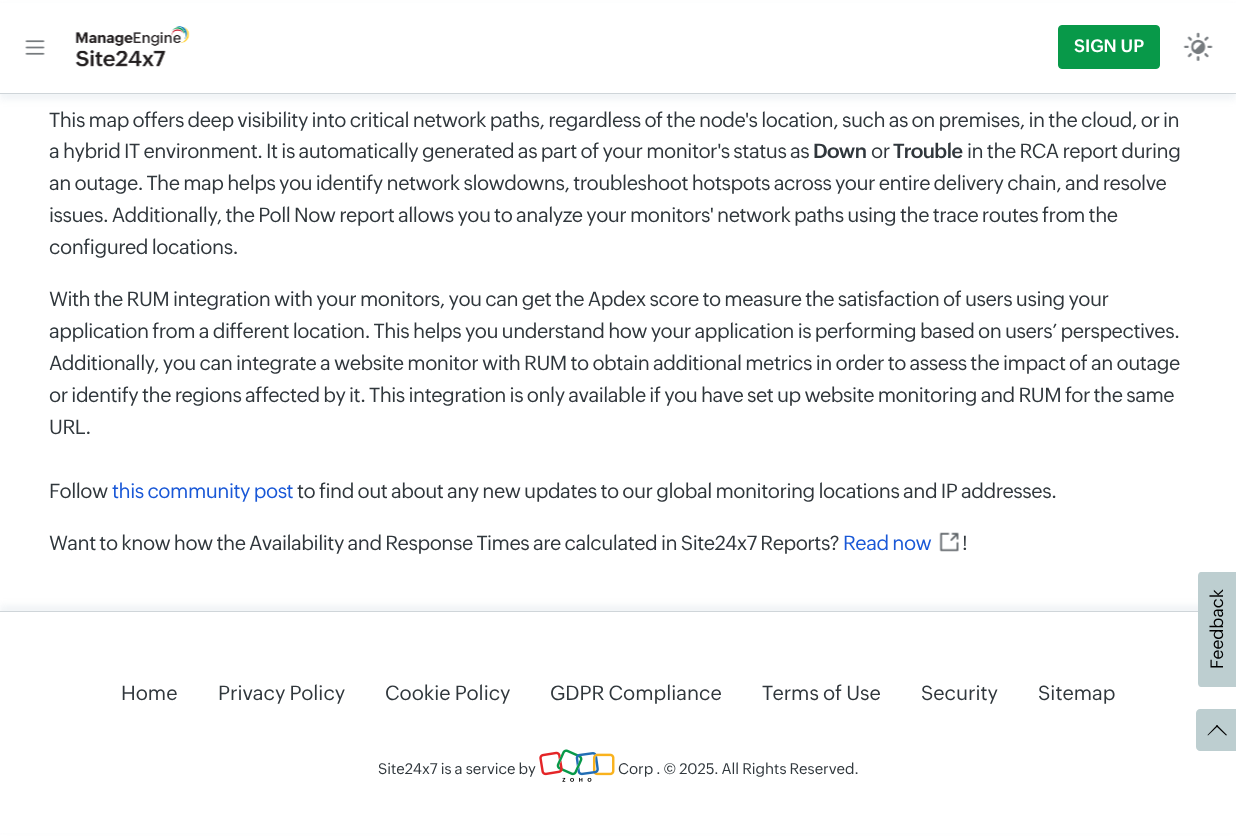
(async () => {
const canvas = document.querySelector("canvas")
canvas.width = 1236
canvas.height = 836
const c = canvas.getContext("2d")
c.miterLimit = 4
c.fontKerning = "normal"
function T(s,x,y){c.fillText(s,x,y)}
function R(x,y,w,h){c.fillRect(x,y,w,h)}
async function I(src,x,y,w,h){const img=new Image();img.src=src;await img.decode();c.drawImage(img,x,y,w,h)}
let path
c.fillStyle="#fff"
R(0,0,1236,836)
c.fillStyle="#a4b6c426"
c.filter="blur(3px)"
c.beginPath()
c.rect(0,6,1236,94)
c.fill()
c.filter="none"
c.fillStyle="#fff"
R(0,3,1236,90)
c.fillStyle="#cfd5d9"
R(0,93,1236,1)
await I("1.png",25,40,20,15)
await I("2.png",75,26,115,41)
c.fillStyle="#089949"
c.beginPath()
c.roundRect(1058.5,25.5,101,43,3.5)
c.fill()
c.strokeStyle="#089949"
c.stroke()
c.font="600 17.5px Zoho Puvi"
c.fillStyle="#fff"
T("SIGN UP",1074,52)
await I("3.png",1183,32,30,29)
c.letterSpacing="-0.45px"
c.font="20px Zoho Puvi"
c.fillStyle="#30373c"
T("This map offers deep visibility into critical network paths, regardless of the node's location, such as on premises, in the cloud, or in",49,127)
T("a hybrid IT environment. It is automatically generated as part of your monitor's status as",49,158)
c.font="600 20px Zoho Puvi"
T("Down",813,158)
c.font="20px Zoho Puvi"
T("or",871,158)
c.font="600 20px Zoho Puvi"
T("Trouble",893,158)
c.font="20px Zoho Puvi"
T("in the RCA report during",967,158)
T("an outage. The map helps you identify network slowdowns, troubleshoot hotspots across your entire delivery chain, and resolve",49,190)
T("issues. Additionally, the Poll Now report allows you to analyze your monitors' network paths using the trace routes from the",49,222)
T("configured locations.",49,254)
T("With the RUM integration with your monitors, you can get the Apdex score to measure the satisfaction of users using your",49,306)
T("application from a different location. This helps you understand how your application is performing based on users’ perspectives.",49,338)
T("Additionally, you can integrate a website monitor with RUM to obtain additional metrics in order to assess the impact of an outage",49,370)
T("or identify the regions affected by it. This integration is only available if you have set up website monitoring and RUM for the same",49,402)
T("URL.",49,434)
T("Follow",49,498)
c.fillStyle="#1958d7"
T("this community post",112,498)
c.fillStyle="#30373c"
T("to find out about any new updates to our global monitoring locations and IP addresses.",297,498)
T("Want to know how the Availability and Response Times are calculated in Site24x7 Reports?",49,550)
c.fillStyle="#1958d7"
T("Read now",843,550)
await I("4.png",939,532,20,20)
c.fillStyle="#30373c"
T("!",962,550)
c.fillStyle="#a4b6c426"
c.filter="blur(3px)"
c.beginPath()
c.rect(0,605,1236,225)
c.fill()
c.filter="none"
c.fillStyle="#fff"
R(0,612,1236,221)
c.fillStyle="#bdced0"
path = new Path2D("M1198 683v-107c0-2 1-4 3-4h35v115h-35c-2 0-3-2-3-4z")
c.fill(path)
c.letterSpacing="0px"
c.font="17.5px Zoho Puvi"
c.fillStyle="#000"
c.save()
c.translate(1223,669)
c.rotate(-90 * Math.PI / 180)
c.fillText("Feedback",0,0)
c.restore()
c.fillStyle="#cfd5d9"
R(0,611,1198,1)
c.font="20px Zoho Puvi"
c.fillStyle="#30373c"
T("Home",121,700)
T("Privacy Policy",218,700)
T("Cookie Policy",385,700)
T("GDPR Compliance",550,700)
T("Terms of Use",762,700)
T("Security",921,700)
T("Sitemap",1038,700)
c.font="15px Zoho Puvi"
T("Site24x7 is a service by",378,774)
await I("5.png",539,749,76,33)
T("Corp . © 2025. All Rights Reserved.",618,774)
c.fillStyle="#bdced0"
path = new Path2D("M1200 709h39v42h-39c-2 0-4-2-4-4v-34c0-2 2-4 4-4z")
c.fill(path)
c.fillStyle="#000"
path = new Path2D("M1207.5 735l9.5-10l1 1l-10 9.5z")
c.fill(path)
path = new Path2D("M1216 726l1-1l10 10l-1 .5z")
c.fill(path)
})()
